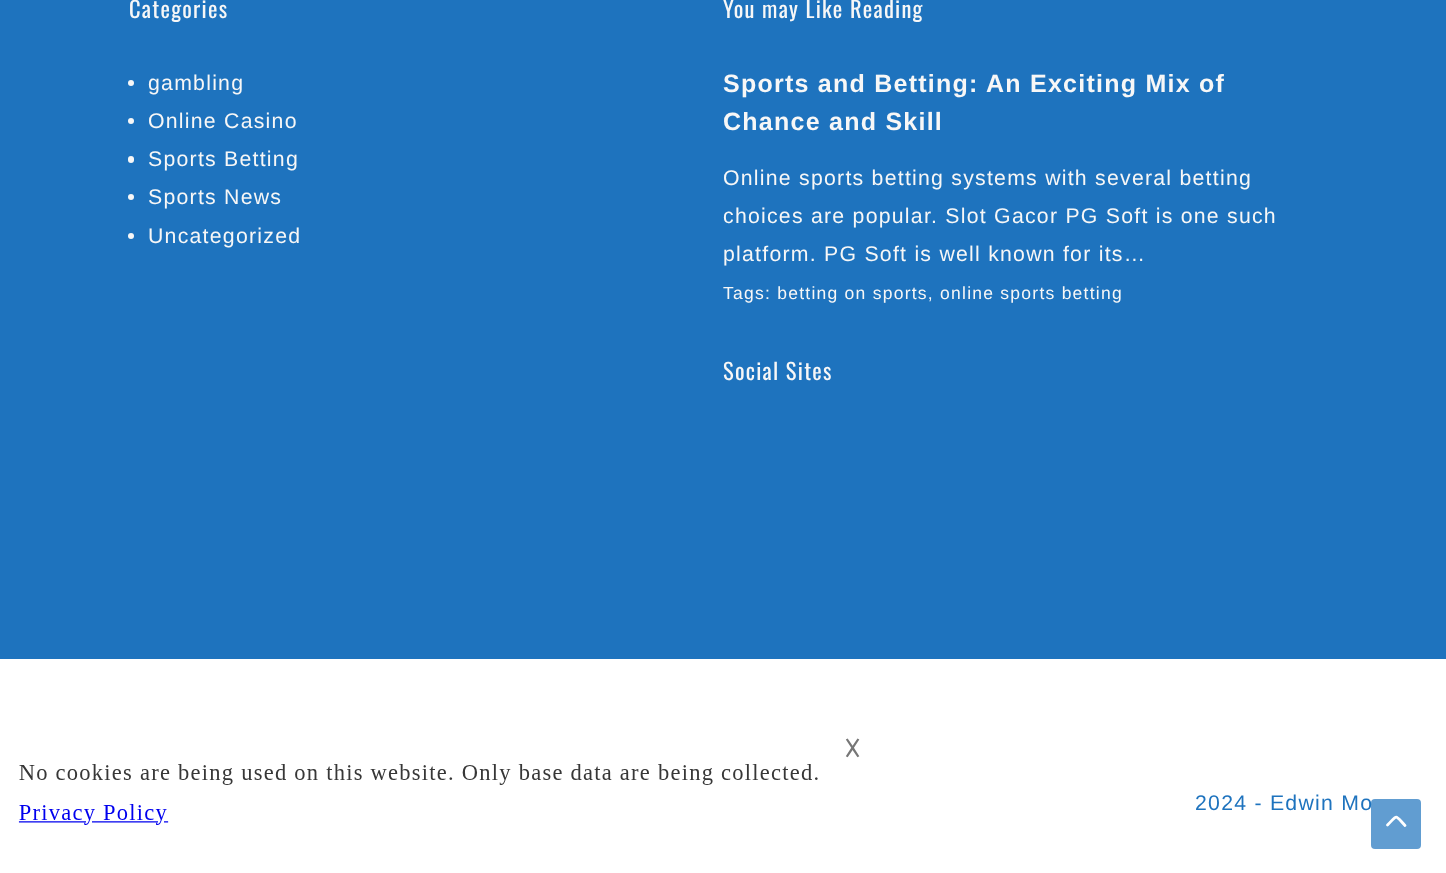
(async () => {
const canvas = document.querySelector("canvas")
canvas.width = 1446
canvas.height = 873
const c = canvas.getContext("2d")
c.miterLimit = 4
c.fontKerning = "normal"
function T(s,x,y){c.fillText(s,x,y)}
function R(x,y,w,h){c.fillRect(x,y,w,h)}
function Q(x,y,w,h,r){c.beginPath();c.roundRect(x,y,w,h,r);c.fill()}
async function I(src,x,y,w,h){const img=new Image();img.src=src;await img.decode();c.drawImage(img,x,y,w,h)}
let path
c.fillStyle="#fff"
R(0,0,1446,873)
c.fillStyle="#1e73be"
R(0,0,1446,659)
c.letterSpacing="1.25px"
c.font="22.5px Oswald"
c.fillStyle="#f7f7f7"
T("Categories",129,18)
c.beginPath()
c.arc(131,83,3,0,7)
c.fill()
c.font="21.25px Liberation Sans"
T("gambling",148,90)
c.beginPath()
c.arc(131,121,3,0,7)
c.fill()
T("Online Casino",148,128)
Q(128,156,6,7,3)
T("Sports Betting",148,166)
c.beginPath()
c.arc(131,197,3,0,7)
c.fill()
T("Sports News",148,204)
c.beginPath()
c.arc(131,236,3,0,7)
c.fill()
T("Uncategorized",148,243)
c.font="22.5px Oswald"
T("You may Like Reading",723,18)
c.font="bold 25px Liberation Sans"
T("Sports and Betting: An Exciting Mix of",723,92)
T("Chance and Skill",723,130)
c.font="21.25px Liberation Sans"
T("Online sports betting systems with several betting",723,185)
T("choices are popular. Slot Gacor PG Soft is one such",723,223)
T("platform. PG Soft is well known for its…",723,261)
c.font="17.5px Liberation Sans"
T("Tags: betting on sports, online sports betting",723,299)
c.font="22.5px Oswald"
T("Social Sites",723,380)
c.font="21.25px Liberation Sans"
c.fillStyle="#1e73be"
T("2024 - Edwin Mo",1195,810)
c.font="25px DejaVu Sans"
c.fillStyle="#777"
T("𐌢",844,757)
await I("1.png",18,764,800,61)
c.fillStyle="#1e73beb3"
Q(1371,799,50,50,4)
path = new Path2D("M1405 825.5c-10.5-11-7-11-17.5-.5")
c.strokeStyle="#fff"
c.lineWidth=2.8
c.lineCap="round"
c.lineJoin="bevel"
c.stroke(path)
})()
